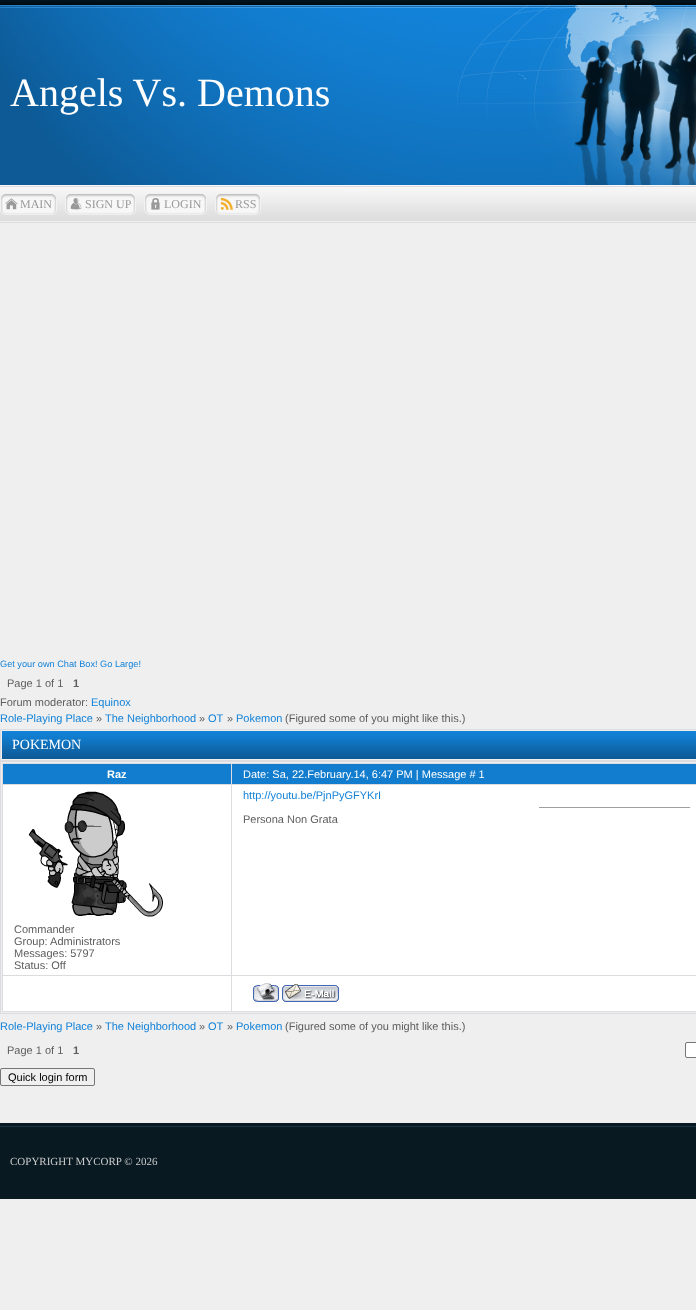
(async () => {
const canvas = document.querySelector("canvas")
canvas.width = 696
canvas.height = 1310
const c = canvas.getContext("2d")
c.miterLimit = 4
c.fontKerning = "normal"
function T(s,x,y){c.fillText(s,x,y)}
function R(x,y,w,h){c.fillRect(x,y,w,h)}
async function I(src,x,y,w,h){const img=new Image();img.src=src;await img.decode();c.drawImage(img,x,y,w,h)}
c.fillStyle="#efefef"
R(0,0,696,1310)
await I("1.png",0,185,696,38)
await I("2.png",0,0,696,185)
c.font="40px Liberation Serif"
c.fillStyle="#fff"
T("Angels Vs. Demons",10,106)
await I("3.png",457,5,239,180)
await I("4.png",0,194,5,21)
await I("5.png",5,194,47,21)
await I("6.png",5,198,13,12)
c.font="12px Liberation Serif"
c.fillStyle="#999"
T("MAIN",20,208)
await I("7.png",52,194,5,21)
await I("4.png",65,194,5,21)
await I("8.png",70,194,61,21)
await I("9.png",70,198,12,12)
T("SIGN UP",85,208)
await I("7.png",131,194,5,21)
await I("4.png",144,194,5,21)
await I("10.png",149,194,53,21)
await I("11.png",151,198,9,12)
T("LOGIN",164,208)
await I("7.png",202,194,5,21)
await I("4.png",215,194,5,21)
await I("12.png",220,194,36,21)
await I("13.png",220,197,13,13)
T("RSS",235,208)
await I("7.png",256,194,5,21)
c.font="9.2px Liberation Sans"
c.fillStyle="#1282d8"
T("Get your own Chat Box! Go Large!",0,667)
c.font="11px Liberation Sans"
c.fillStyle="#5d5d5d"
T("Page 1 of 1",7,687)
c.font="bold 11px Liberation Sans"
T("1",73,687)
c.font="11px Liberation Sans"
T("Forum moderator:",0,706)
c.fillStyle="#1282d8"
T("Equinox",91,706)
T("Role-Playing Place",0,722)
c.fillStyle="#5d5d5d"
T("»",96,722)
c.fillStyle="#1282d8"
T("The Neighborhood",105,722)
c.fillStyle="#5d5d5d"
T("»",199,722)
c.fillStyle="#1282d8"
T("OT",208,722)
c.fillStyle="#5d5d5d"
T("»",227,722)
c.fillStyle="#1282d8"
T("Pokemon",236,722)
c.fillStyle="#5d5d5d"
T("(Figured some of you might like this.)",285,722)
c.fillStyle="#dcdbe0"
R(0,729,696,285)
await I("14.png",2,731,694,28)
c.strokeStyle="#efefef"
c.strokeRect(1.5,730.5,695,29)
c.font="14px Liberation Serif"
c.fillStyle="#fff"
T("POKEMON",12,749)
c.strokeRect(1.5,762.5,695,250)
c.fillStyle="#127cce"
R(3,764,228,20)
c.font="bold 11px Liberation Sans"
c.fillStyle="#fff"
T("Raz",107,778)
c.fillStyle="#127cce"
R(232,764,464,20)
c.font="11px Liberation Sans"
c.fillStyle="#fff"
T("Date: Sa, 22.February.14, 6:47 PM | Message # 1",243,778)
R(232,785,464,190)
c.fillStyle="#1282d8"
T("http://youtu.be/PjnPyGFYKrI",243,799)
c.fillStyle="#9f9f9f"
R(539,807,152,1)
c.fillStyle="#eee"
R(690,807,1,1)
c.fillStyle="#5d5d5d"
T("Persona Non Grata",243,823)
c.fillStyle="#fff"
R(3,785,228,190)
await I("15.png",28,791,135,126)
c.fillStyle="#5d5d5d"
T("Commander",14,933)
T("Group: Administrators",14,945)
T("Messages: 5797",14,957)
T("Status: Off",14,969)
c.fillStyle="#fff"
R(3,976,228,35)
R(232,976,464,35)
await I("16.png",253,983,26,19)
await I("17.png",282,984,57,18)
c.fillStyle="#1282d8"
T("Role-Playing Place",0,1030)
c.fillStyle="#5d5d5d"
T("»",96,1030)
c.fillStyle="#1282d8"
T("The Neighborhood",105,1030)
c.fillStyle="#5d5d5d"
T("»",199,1030)
c.fillStyle="#1282d8"
T("OT",208,1030)
c.fillStyle="#5d5d5d"
T("»",227,1030)
c.fillStyle="#1282d8"
T("Pokemon",236,1030)
c.fillStyle="#5d5d5d"
T("(Figured some of you might like this.)",285,1030)
T("Page 1 of 1",7,1054)
c.font="bold 11px Liberation Sans"
T("1",73,1054)
c.fillStyle="#fff"
c.beginPath()
c.roundRect(685.5,1042.5,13,15,1.5)
c.fill()
c.strokeStyle="#767676"
c.stroke()
c.beginPath()
c.roundRect(.5,1068.5,94,17,1.5)
c.stroke()
c.font="11px Liberation Sans"
c.fillStyle="#000"
T("Quick login form",8,1081)
await I("18.png",0,1123,696,76)
c.font="11px Liberation Serif"
c.fillStyle="#ccc"
T("COPYRIGHT MYCORP © 2026",10,1165)
})()
